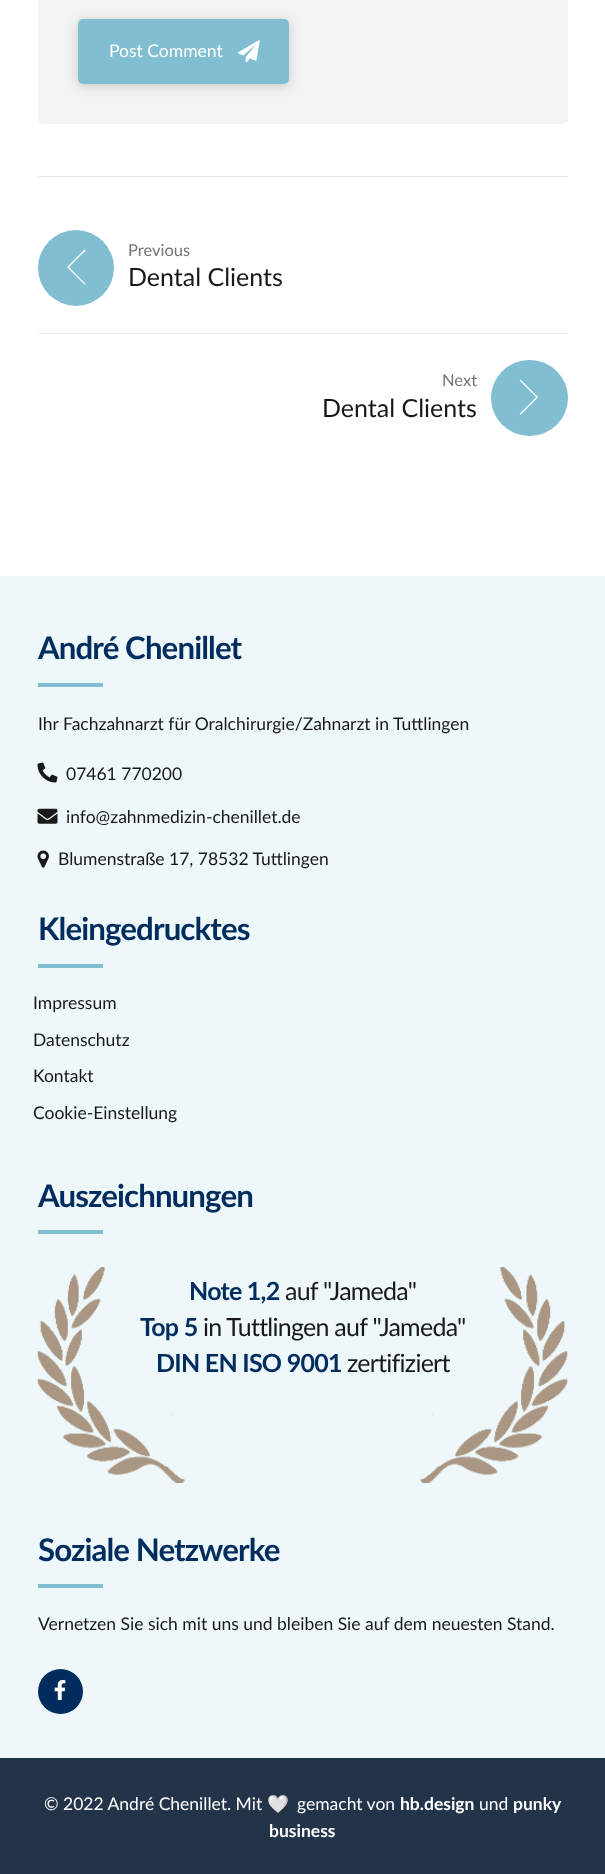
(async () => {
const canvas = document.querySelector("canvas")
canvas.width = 605
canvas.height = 1874
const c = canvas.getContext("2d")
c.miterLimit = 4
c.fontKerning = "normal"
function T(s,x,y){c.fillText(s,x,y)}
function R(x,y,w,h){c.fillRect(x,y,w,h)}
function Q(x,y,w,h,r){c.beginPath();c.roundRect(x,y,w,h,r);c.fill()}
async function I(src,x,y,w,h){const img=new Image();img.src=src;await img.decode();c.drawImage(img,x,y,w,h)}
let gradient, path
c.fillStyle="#fff"
R(0,0,605,1874)
c.fillStyle="#f3f3f3"
Q(38,-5,530,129,5)
c.fillStyle="#22222233"
c.filter="blur(6px)"
c.beginPath()
c.roundRect(78,21,211,65,5)
c.fill()
c.filter="none"
gradient = c.createLinearGradient(78,51,500,51)
gradient.addColorStop(.51,"#81bed1")
gradient.addColorStop(1,"#002c5e")
c.fillStyle = gradient
Q(78,19,211,65,5)
c.font="17.5px Lato"
c.fillStyle="#fff"
T("Post Comment",109,57)
await I("1.png",237,40,23,23)
c.fillStyle="#e9e9e9"
R(38,176,530,1)
c.fillStyle="#81bed1"
c.beginPath()
c.arc(76,268,38,0,7)
c.fill()
c.fillStyle="#fff"
path = new Path2D("M85 283.5l-16-16.5l13.5-13.5c1-1 3.5-2 3-3.5l-1-.5l-17.5 17.5l17.5 17.5c.5 .5 1-.5 .5-1z")
c.fill(path)
c.font="16.5px Lato"
c.fillStyle="#747474"
T("Previous",128,256)
c.font="25px Lato"
c.fillStyle="#181818"
T("Dental Clients",128,286)
c.fillStyle="#e9e9e9"
R(38,333,530,1)
c.font="16.5px Lato"
c.fillStyle="#747474"
T("Next",442,386)
c.font="25px Lato"
c.fillStyle="#181818"
T("Dental Clients",322,417)
c.fillStyle="#81bed1"
Q(491,360,77,76,38)
await I("2.png",519,379,19,36)
c.fillStyle="#eef8fa"
R(0,576,605,1182)
c.letterSpacing="-0.9px"
c.font="bold 31.25px Lato"
c.fillStyle="#002c5e"
T("André Chenillet",38,659)
c.fillStyle="#81bed1"
R(38,683,65,4)
c.letterSpacing="0px"
c.font="17.5px Lato"
c.fillStyle="#181818"
T("Ihr Fachzahnarzt für Oralchirurgie/Zahnarzt in Tuttlingen",38,730)
await I("3.png",37,762,21,21)
T("07461 770200",66,780)
await I("4.png",37,808,21,16)
T("info@zahnmedizin-chenillet.de",66,823)
await I("5.png",37,850,12,18)
T("Blumenstraße 17, 78532 Tuttlingen",58,865)
c.letterSpacing="-0.9px"
c.font="bold 31.25px Lato"
c.fillStyle="#002c5e"
T("Kleingedrucktes",38,940)
c.fillStyle="#81bed1"
R(38,964,65,4)
c.letterSpacing="0px"
c.font="17.5px Lato"
c.fillStyle="#181818"
T("Impressum",33,1009)
T("Datenschutz",33,1046)
T("Kontakt",33,1082)
T("Cookie-Einstellung",33,1119)
c.letterSpacing="-0.9px"
c.font="bold 31.25px Lato"
c.fillStyle="#002c5e"
T("Auszeichnungen",38,1207)
c.fillStyle="#81bed1"
R(38,1230,65,4)
await I("6.png",37,1267,531,217)
c.letterSpacing="-0.75px"
c.font="bold 25px Lato"
c.fillStyle="#002c5e"
T("Note 1,2",189,1300)
c.font="25px Lato"
c.fillStyle="#181818"
T("auf \"Jameda\"",285,1300)
c.font="bold 25px Lato"
c.fillStyle="#002c5e"
T("Top 5",140,1336)
c.font="25px Lato"
c.fillStyle="#181818"
T("in Tuttlingen auf \"Jameda\"",203,1336)
c.font="bold 25px Lato"
c.fillStyle="#002c5e"
T("DIN EN ISO 9001",156,1372)
c.font="25px Lato"
c.fillStyle="#181818"
T("zertifiziert",347,1372)
c.letterSpacing="-0.9px"
c.font="bold 31.25px Lato"
c.fillStyle="#002c5e"
T("Soziale Netzwerke",38,1561)
c.fillStyle="#81bed1"
R(38,1584,65,4)
c.letterSpacing="0px"
c.font="17.5px Lato"
c.fillStyle="#181818"
T("Vernetzen Sie sich mit uns und bleiben Sie auf dem neuesten Stand.",38,1630)
c.fillStyle="#002c5e"
c.beginPath()
c.arc(60.5,1691.5,22.5,0,7)
c.fill()
await I("7.png",54,1680,12,20)
c.fillStyle="#22334a"
R(0,1758,605,116)
c.fillStyle="#fff"
T("© 2022 André Chenillet. Mit",44,1810)
c.font="17.5px Noto Color Emoji"
T("🤍",267,1810)
c.font="17.5px Lato"
T("gemacht von",297,1810)
c.font="bold 17.5px Lato"
T("hb.design",400,1810)
c.font="17.5px Lato"
T("und",479,1810)
c.font="bold 17.5px Lato"
T("punky",513,1810)
T("business",269,1837)
})()
